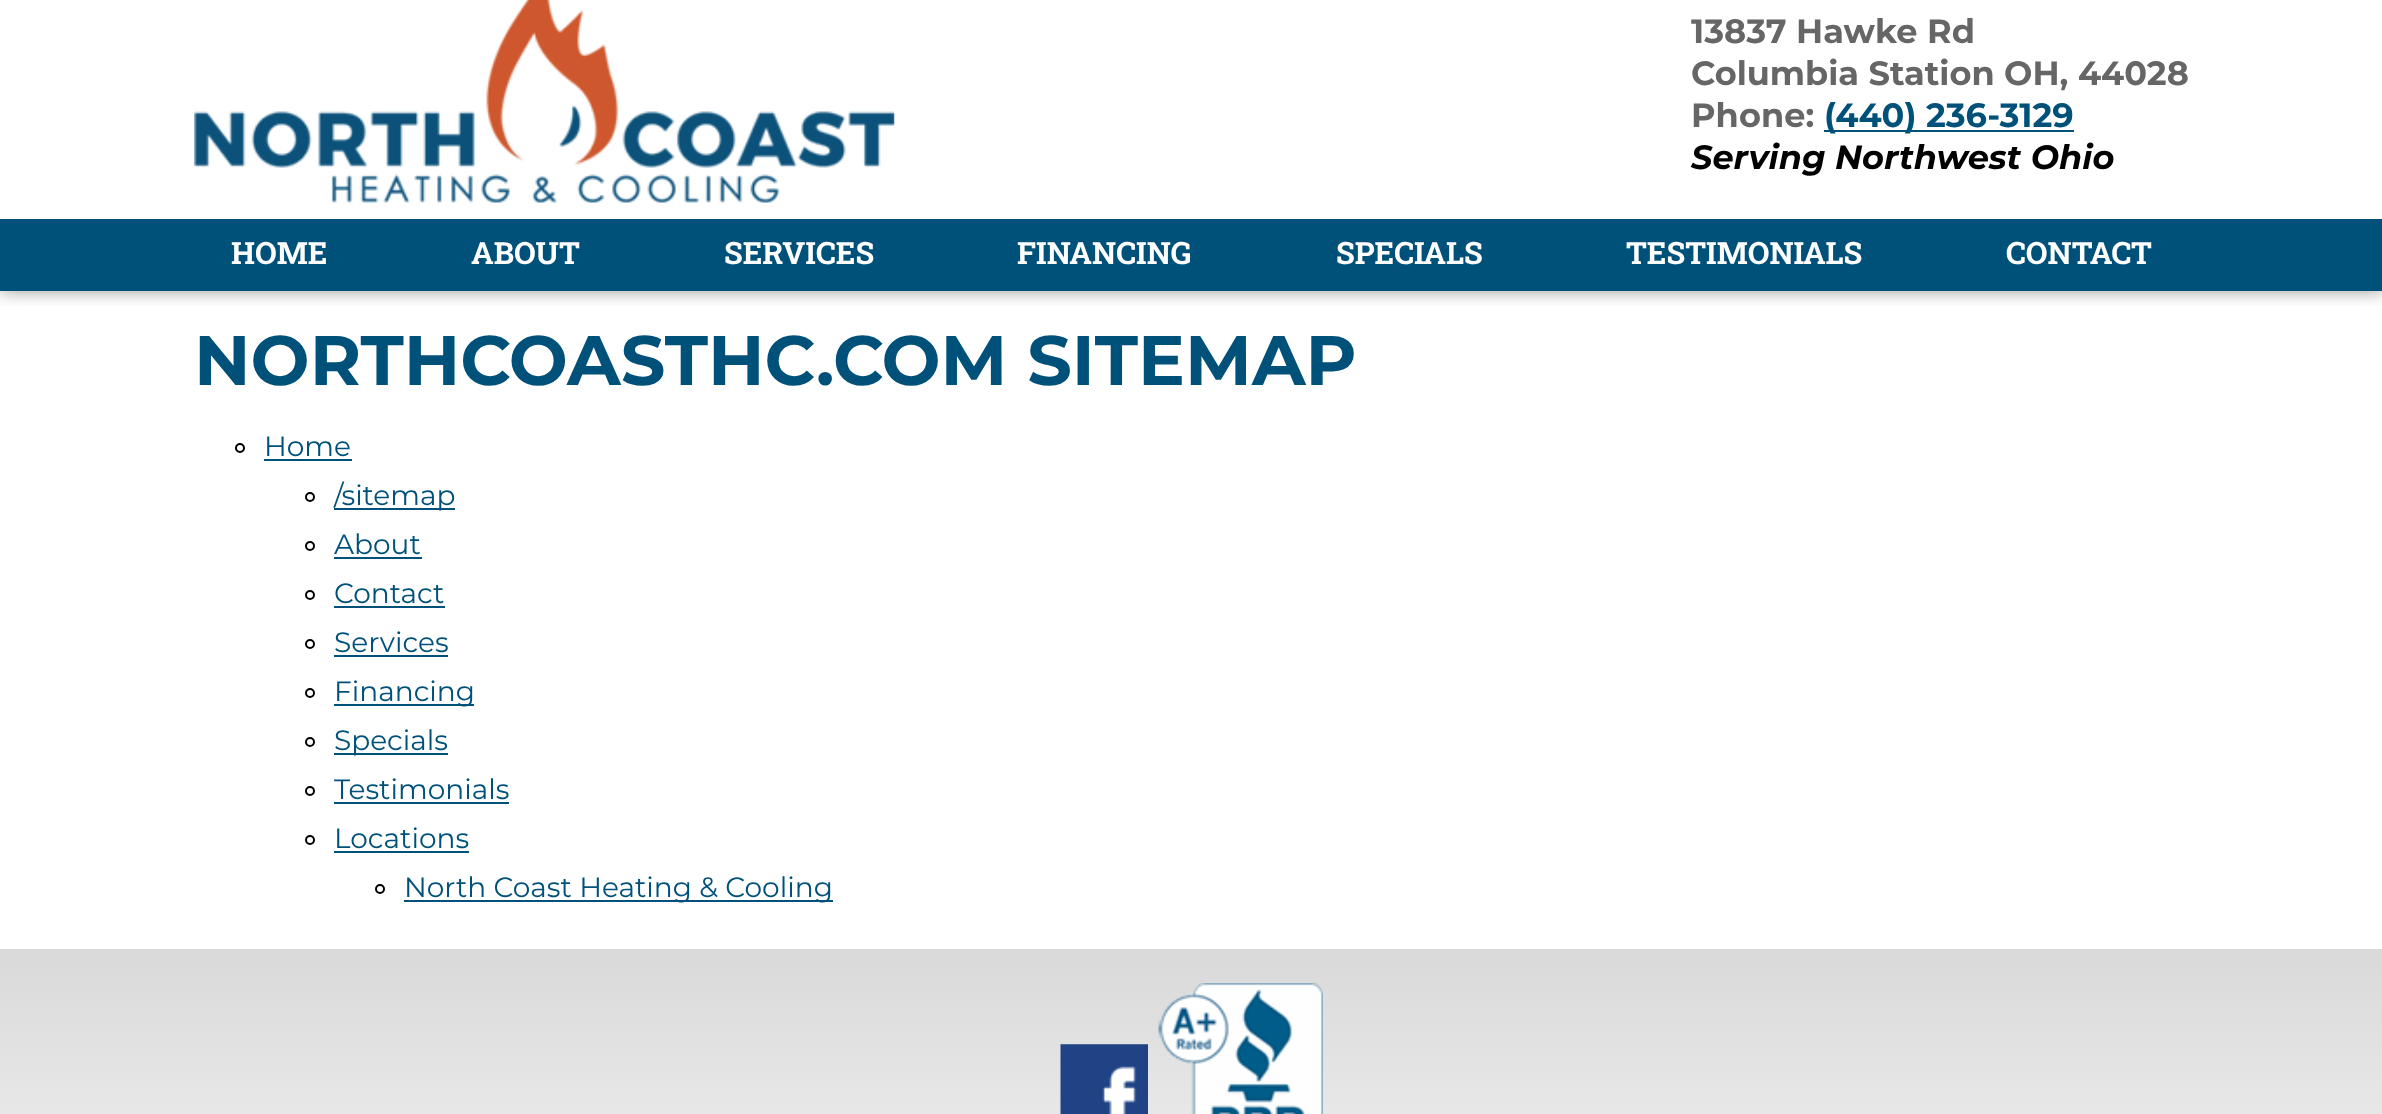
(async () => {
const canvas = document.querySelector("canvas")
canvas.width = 2382
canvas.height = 1114
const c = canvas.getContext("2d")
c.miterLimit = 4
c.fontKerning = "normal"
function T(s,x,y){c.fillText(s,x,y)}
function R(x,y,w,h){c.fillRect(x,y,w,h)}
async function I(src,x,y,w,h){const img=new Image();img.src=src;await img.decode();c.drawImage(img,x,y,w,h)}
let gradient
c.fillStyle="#fff"
R(0,0,2382,1114)
c.save()
c.beginPath()
c.rect(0,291,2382,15)
c.clip()
c.fillStyle="#00000066"
c.filter="blur(9px)"
c.beginPath()
c.rect(0,-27,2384,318)
c.fill()
c.filter="none"
c.restore()
await I("1.png",194,0,701,203)
c.font="bold 33.6px Montserrat"
c.fillStyle="#666"
T("13837 Hawke Rd",1691,43)
T("Columbia Station OH, 44028",1691,85)
T("Phone:",1691,127)
c.fillStyle="#00517a"
R(1824,130,250,2)
T("(440) 236-3129",1824,127)
c.font="italic bold 33.6px Montserrat"
c.fillStyle="#000"
T("Serving Northwest Ohio",1691,169)
c.fillStyle="#00517a"
R(0,219,2382,72)
c.font="bold 30.75px Roboto Slab"
c.fillStyle="#fff"
T("HOME",231,264)
T("ABOUT",471,264)
T("SERVICES",724,264)
T("FINANCING",1017,264)
T("SPECIALS",1336,264)
T("TESTIMONIALS",1626,264)
T("CONTACT",2006,264)
c.font="bold 70px Montserrat"
c.fillStyle="#00517a"
T("NORTHCOASTHC.COM SITEMAP",194,385)
c.beginPath()
c.arc(240,448,4,0,7)
c.strokeStyle="#000"
c.lineWidth=2
c.stroke()
c.font="28px Montserrat"
T("Home",264,456)
R(264,459,88,2)
c.beginPath()
c.arc(310,497,4,0,7)
c.stroke()
R(334,508,121,2)
T("/sitemap",334,505)
c.beginPath()
c.arc(310,546,4,0,7)
c.stroke()
T("About",334,554)
R(334,557,88,2)
c.beginPath()
c.arc(310,595,4,0,7)
c.stroke()
T("Contact",334,603)
R(334,606,111,2)
c.beginPath()
c.arc(310,644,4,0,7)
c.stroke()
T("Services",334,652)
R(334,655,114,2)
c.beginPath()
c.arc(310,693,4,0,7)
c.stroke()
R(334,704,140,2)
T("Financing",334,701)
c.beginPath()
c.arc(310,742,4,0,7)
c.stroke()
R(334,753,114,2)
T("Specials",334,750)
c.beginPath()
c.arc(310,791,4,0,7)
c.stroke()
T("Testimonials",334,799)
R(334,802,175,2)
c.beginPath()
c.arc(310,840,4,0,7)
c.stroke()
T("Locations",334,848)
R(334,851,135,2)
c.beginPath()
c.arc(380,889,4,0,7)
c.stroke()
R(404,900,429,2)
T("North Coast Heating & Cooling",404,897)
gradient = c.createLinearGradient(1192,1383,1192,949)
gradient.addColorStop(0,"#fff")
gradient.addColorStop(1,"#d9d9d9")
c.fillStyle = gradient
R(0,949,2382,165)
await I("2.png",1060,1044,88,70)
await I("3.png",1158,983,165,131)
})()
